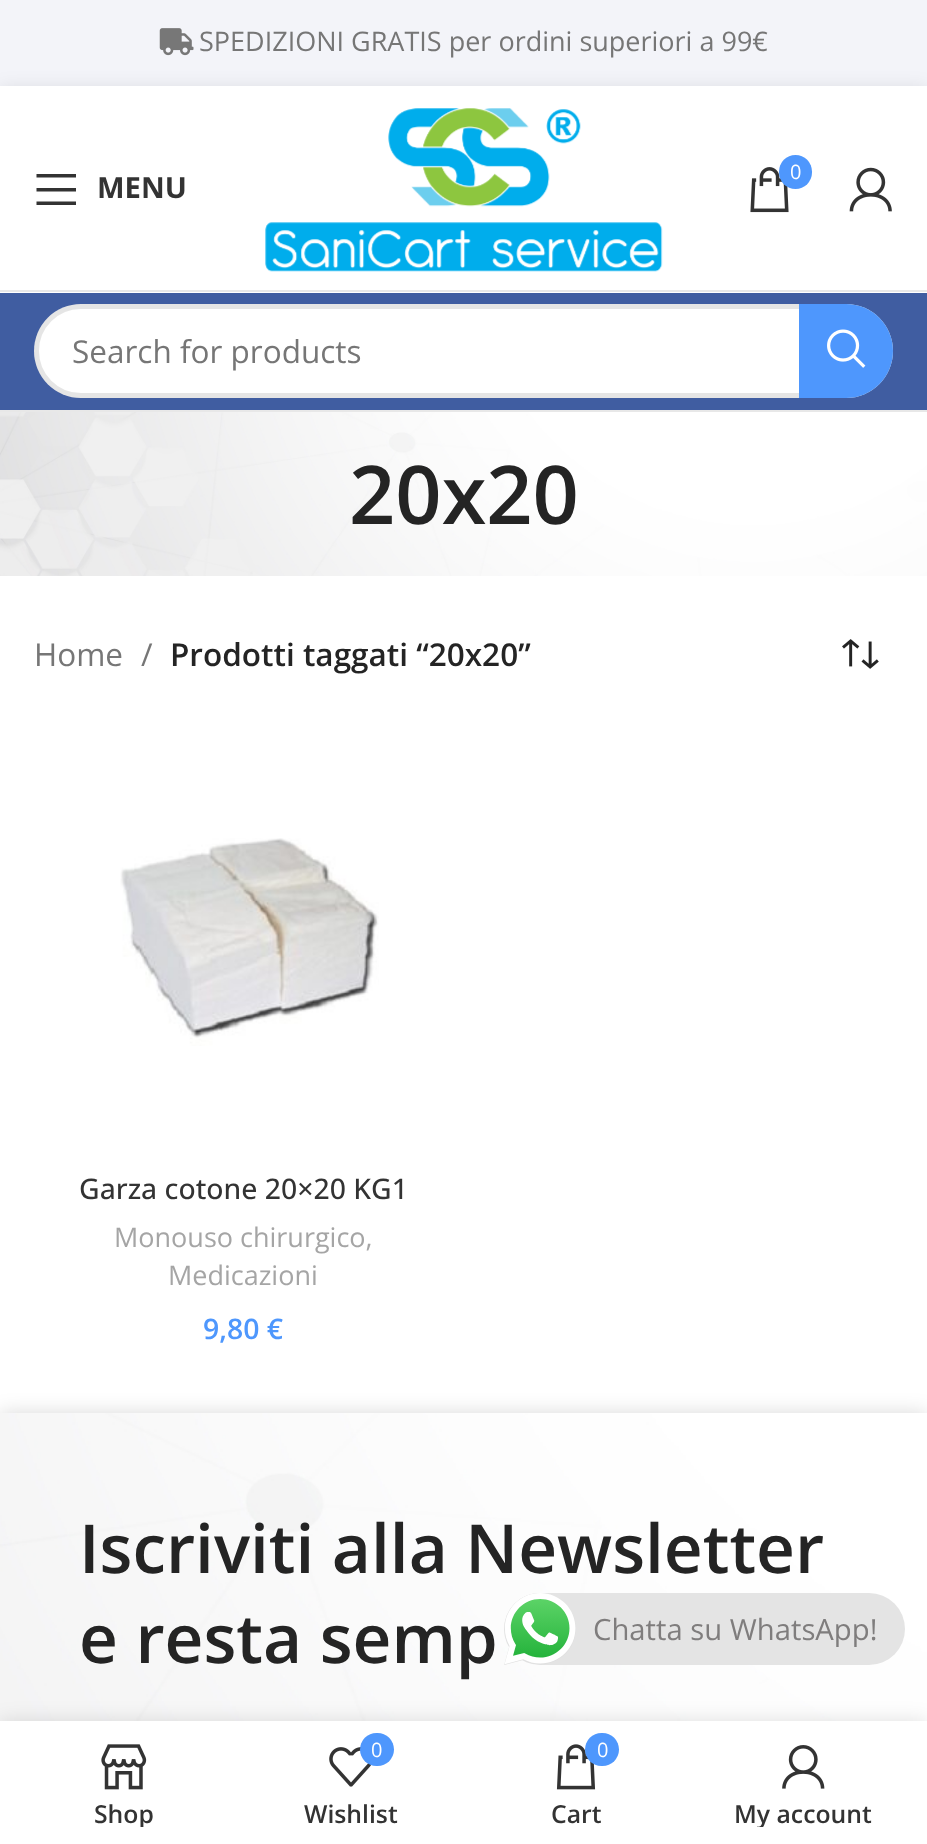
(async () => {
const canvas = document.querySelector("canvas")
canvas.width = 927
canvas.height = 1844
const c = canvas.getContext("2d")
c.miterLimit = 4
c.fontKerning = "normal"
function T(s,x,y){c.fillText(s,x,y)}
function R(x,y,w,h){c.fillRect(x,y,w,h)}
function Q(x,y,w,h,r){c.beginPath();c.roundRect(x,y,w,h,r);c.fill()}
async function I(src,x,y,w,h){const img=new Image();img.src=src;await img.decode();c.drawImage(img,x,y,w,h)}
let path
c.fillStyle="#fff"
R(0,0,927,1844)
c.fillStyle="#f3f4f9"
R(0,0,927,86)
await I("1.png",159,28,35,28)
c.font="27px Open Sans"
c.fillStyle="#767676"
T("SPEDIZIONI GRATIS per ordini superiori a 99€",199,51)
c.fillStyle="#0000001a"
c.filter="blur(9px)"
c.beginPath()
c.rect(0,88,927,207)
c.fill()
c.filter="none"
c.fillStyle="#fff"
R(0,86,927,207)
c.fillStyle="#e8e8e8"
R(0,290,927,2)
await I("2.png",265,108,398,164)
await I("3.png",750,167,39,46)
c.fillStyle="#4e97fd"
Q(779,155,33,34,16.5)
c.font="20px Open Sans"
c.fillStyle="#fff"
T("0",790,179)
await I("4.png",849,167,43,45)
c.fillStyle="#333"
path = new Path2D("M36.5 177.5h39.5v-3.5h-39.5zm0 14h39.5v-3.5h-39.5zm0 13.5h39.5v-3.5h-39.5z")
c.fill(path)
c.font="bold 29.25px Open Sans"
T("MENU",97,198)
c.fillStyle="#405da1"
R(0,293,927,117)
c.fillStyle="#e8e8e8"
R(0,410,927,2)
c.fillStyle="#fff"
Q(34,304,859,94,47)
c.beginPath()
c.roundRect(36.5,306.5,854,89,44.5)
c.strokeStyle="#0000001a"
c.lineWidth=5
c.stroke()
c.font="31.5px Open Sans"
c.fillStyle="#767676"
T("Search for products",72,363)
c.fillStyle="#4e97fd"
c.beginPath()
c.roundRect(799,304,94,94,[0,47,47,0])
c.fill()
await I("5.png",827,329,39,39)
await I("6.png",0,412,927,164)
c.font="600 81px Open Sans"
c.fillStyle="#242424"
T("20x20",349,524)
c.font="31.5px Open Sans"
c.fillStyle="#767676"
T("Home",34,666)
T("/",141,666)
c.font="600 31.5px Open Sans"
c.fillStyle="#242424"
T("Prodotti taggati “20x20”",170,666)
await I("7.png",842,639,37,30)
await I("8.png",120,838,259,208)
c.font="500 28.4px Open Sans"
c.fillStyle="#333"
T("Garza cotone 20×20 KG1",79,1199)
c.font="27px Open Sans"
c.fillStyle="#a5a5a5"
T("Monouso chirurgico,",114,1247)
T("Medicazioni",168,1285)
c.font="600 28.4px Open Sans"
c.fillStyle="#4e97fd"
T("9,80 €",203,1339)
c.fillStyle="#00000026"
c.filter="blur(10px)"
c.beginPath()
c.rect(0,1413,927,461)
c.fill()
c.filter="none"
await I("9.png",0,1413,927,308)
c.font="600 67.5px Open Sans"
c.fillStyle="#242424"
T("Iscriviti alla Newsletter",79,1573)
T("e resta semp",79,1663)
c.fillStyle="#e4e4e4"
Q(504,1593,401,72,36)
await I("10.png",504,1593,72,72)
c.font="29.25px Open Sans"
c.fillStyle="#7f7d7d"
T("Chatta su WhatsApp!",593,1640)
c.fillStyle="#0000001f"
c.filter="blur(10px)"
c.beginPath()
c.rect(0,1721,927,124)
c.fill()
c.filter="none"
c.fillStyle="#fff"
R(0,1721,927,123)
await I("11.png",101,1744,46,46)
c.save()
c.beginPath()
c.rect(34,1798,182,29)
c.clip()
c.font="600 24.75px Open Sans"
c.fillStyle="#333"
T("Shop",94,1823)
c.restore()
await I("12.png",329,1747,42,40)
c.fillStyle="#4e97fd"
Q(360,1733,34,33,16.5)
c.font="20px Open Sans"
c.fillStyle="#fff"
T("0",371,1757)
c.font="600 24.75px Open Sans"
c.fillStyle="#333"
T("Wishlist",304,1823)
await I("13.png",556,1744,40,46)
c.fillStyle="#4e97fd"
Q(585,1733,34,33,16.5)
c.font="20px Open Sans"
c.fillStyle="#fff"
T("0",597,1757)
c.font="600 24.75px Open Sans"
c.fillStyle="#333"
T("Cart",551,1823)
await I("14.png",782,1745,43,44)
c.save()
c.beginPath()
c.rect(713,1798,180,29)
c.clip()
T("My account",734,1823)
c.restore()
})()
